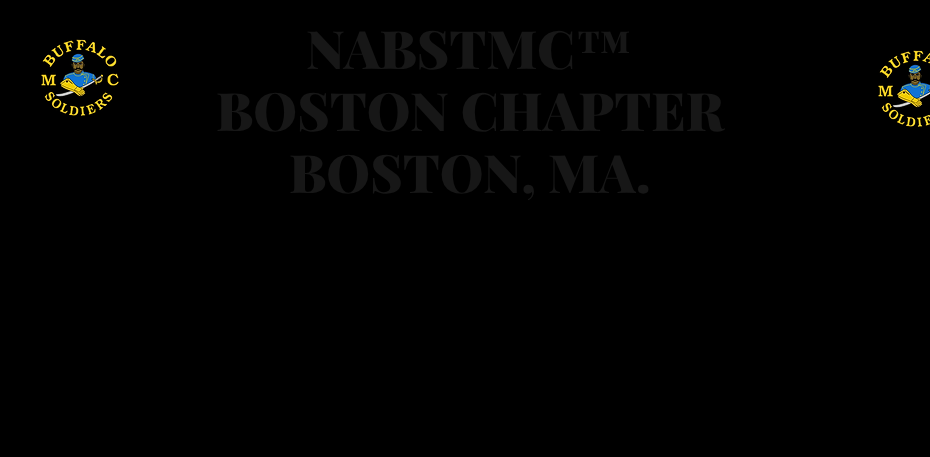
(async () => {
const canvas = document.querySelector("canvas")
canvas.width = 930
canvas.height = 457
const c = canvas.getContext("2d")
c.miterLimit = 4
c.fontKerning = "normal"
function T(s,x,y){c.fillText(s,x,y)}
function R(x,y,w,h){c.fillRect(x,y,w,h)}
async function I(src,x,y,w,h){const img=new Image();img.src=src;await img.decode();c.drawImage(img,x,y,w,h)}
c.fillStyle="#000"
R(0,0,930,457)
await I("1.png",41,39,78,77)
c.font="900 53px Playfair Display"
c.fillStyle="#171717"
T("NABSTMC",306,69)
c.font="bold 53px Playfair Display"
T("™",575,69)
c.font="900 53px Playfair Display"
T("BOSTON CHAPTER",216,131)
T("BOSTON, MA.",289,193)
await I("2.png",878,50,52,77)
})()
